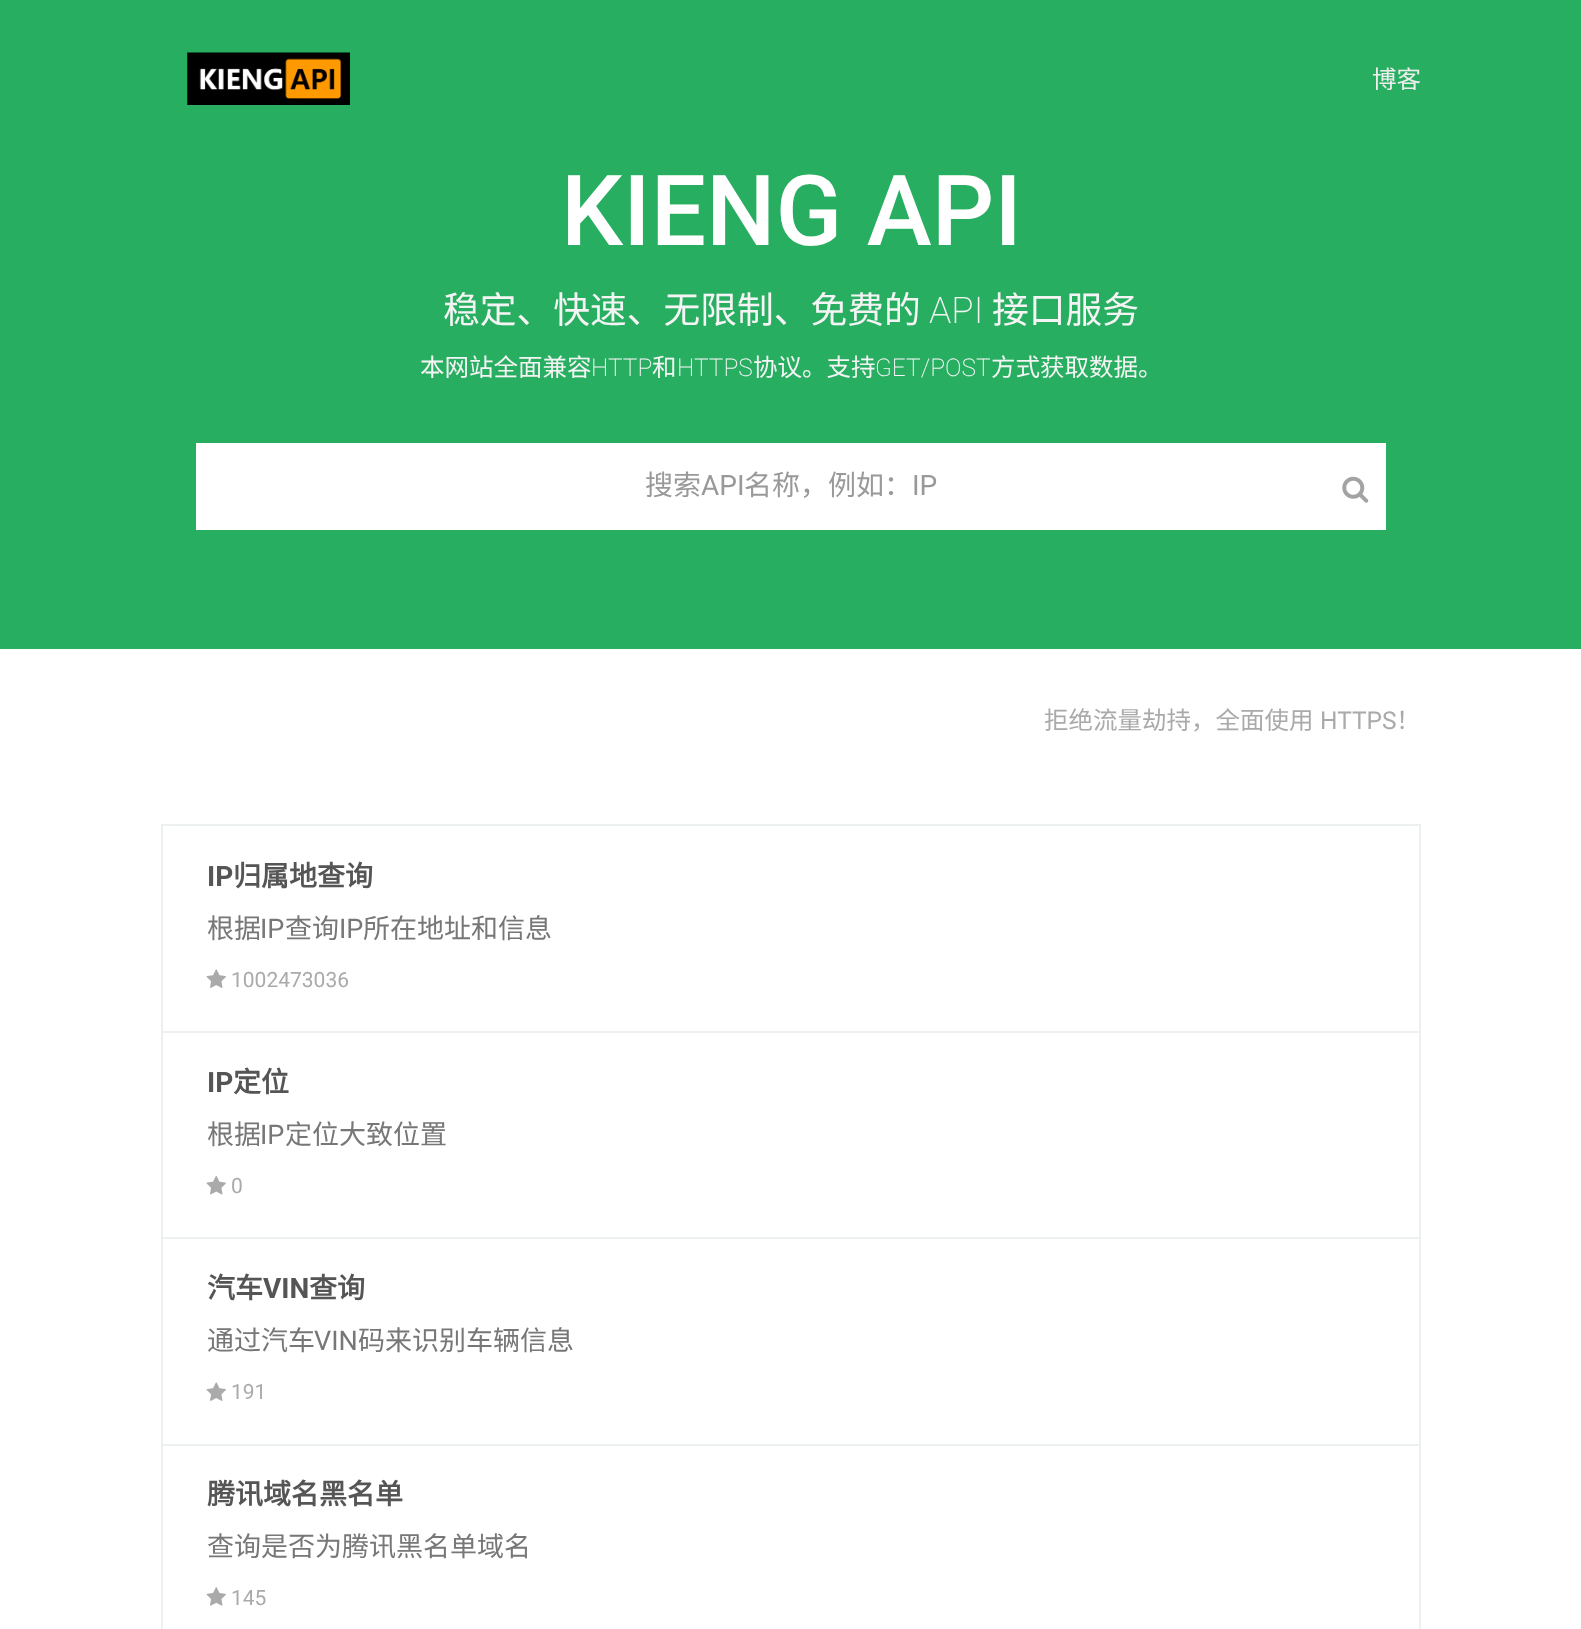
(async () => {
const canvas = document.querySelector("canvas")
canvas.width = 1581
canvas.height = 1629
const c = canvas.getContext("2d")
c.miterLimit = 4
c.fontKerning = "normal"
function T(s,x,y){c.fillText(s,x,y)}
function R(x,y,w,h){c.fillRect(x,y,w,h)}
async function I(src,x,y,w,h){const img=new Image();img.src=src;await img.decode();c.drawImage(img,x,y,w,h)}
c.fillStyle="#fff"
R(0,0,1581,1629)
c.fillStyle="#27ae60"
R(0,0,1581,649)
await I("1.png",187,52,163,53)
c.font="24.5px Noto Sans CJK SC"
c.fillStyle="#eee"
T("博客",1372,88)
c.font="500 98px Roboto"
c.fillStyle="#fff"
T("KIENG API",561,245)
c.font="36.75px Noto Sans CJK SC"
c.fillStyle="#f4f4f4"
T("稳定、快速、无限制、免费的",443,323)
c.font="200 36.75px Roboto"
T("API",929,323)
c.font="36.75px Noto Sans CJK SC"
T("接口服务",992,323)
c.font="24.5px Noto Sans CJK SC"
T("本网站全面兼容",420,376)
c.font="200 24.5px Roboto"
T("HTTP",591,376)
c.font="24.5px Noto Sans CJK SC"
T("和",652,376)
c.font="200 24.5px Roboto"
T("HTTPS",677,376)
c.font="24.5px Noto Sans CJK SC"
T("协议。支持",753,376)
c.font="200 24.5px Roboto"
T("GET/POST",875,376)
c.font="24.5px Noto Sans CJK SC"
T("方式获取数据。",991,376)
c.fillStyle="#fff"
R(196,443,1190,87)
c.font="28px Noto Sans CJK SC"
c.fillStyle="#999"
T("搜索",645,495)
c.font="28px Roboto"
T("API",701,495)
c.font="28px Noto Sans CJK SC"
T("名称，例如：",744,495)
c.font="28px Roboto"
T("IP",912,495)
await I("2.png",1342,476,27,27)
c.font="24.5px Noto Sans CJK SC"
c.fillStyle="#aaa"
T("拒绝流量劫持，全面使用",1044,729)
c.font="24.5px Roboto"
T("HTTPS",1320,729)
c.font="24.5px Noto Sans CJK SC"
T("！",1396,729)
c.strokeStyle="#ecf0f1"
c.lineWidth=2
c.strokeRect(162,825,1258,207)
c.font="bold 28px Roboto"
c.fillStyle="#555"
T("IP",207,886)
c.font="bold 28px Noto Sans CJK SC"
T("归属地查询",233,886)
c.font="27px Noto Sans CJK SC"
c.fillStyle="#777"
T("根据",207,938)
c.font="27px Roboto"
T("IP",260,938)
c.font="27px Noto Sans CJK SC"
T("查询",285,938)
c.font="27px Roboto"
T("IP",339,938)
c.font="27px Noto Sans CJK SC"
T("所在地址和信息",363,938)
await I("3.png",206,969,20,19)
c.font="21px Roboto"
c.fillStyle="#aaa"
T("1002473036",231,987)
c.strokeRect(162,1032,1258,206)
c.font="bold 28px Roboto"
c.fillStyle="#555"
T("IP",207,1092)
c.font="bold 28px Noto Sans CJK SC"
T("定位",233,1092)
c.font="27px Noto Sans CJK SC"
c.fillStyle="#777"
T("根据",207,1144)
c.font="27px Roboto"
T("IP",260,1144)
c.font="27px Noto Sans CJK SC"
T("定位大致位置",285,1144)
await I("4.png",206,1176,20,19)
c.font="21px Roboto"
c.fillStyle="#aaa"
T("0",231,1193)
c.strokeRect(162,1238,1258,207)
c.font="bold 28px Noto Sans CJK SC"
c.fillStyle="#555"
T("汽车",207,1298)
c.font="bold 28px Roboto"
T("VIN",263,1298)
c.font="bold 28px Noto Sans CJK SC"
T("查询",309,1298)
c.font="27px Noto Sans CJK SC"
c.fillStyle="#777"
T("通过汽车",207,1350)
c.font="27px Roboto"
T("VIN",314,1350)
c.font="27px Noto Sans CJK SC"
T("码来识别车辆信息",358,1350)
await I("3.png",206,1382,20,19)
c.font="21px Roboto"
c.fillStyle="#aaa"
T("191",231,1399)
c.strokeRect(162,1445,1258,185)
c.font="bold 28px Noto Sans CJK SC"
c.fillStyle="#555"
T("腾讯域名黑名单",207,1504)
c.font="27px Noto Sans CJK SC"
c.fillStyle="#777"
T("查询是否为腾讯黑名单域名",207,1556)
await I("5.png",206,1587,20,19)
c.font="21px Roboto"
c.fillStyle="#aaa"
T("145",231,1605)
})()
